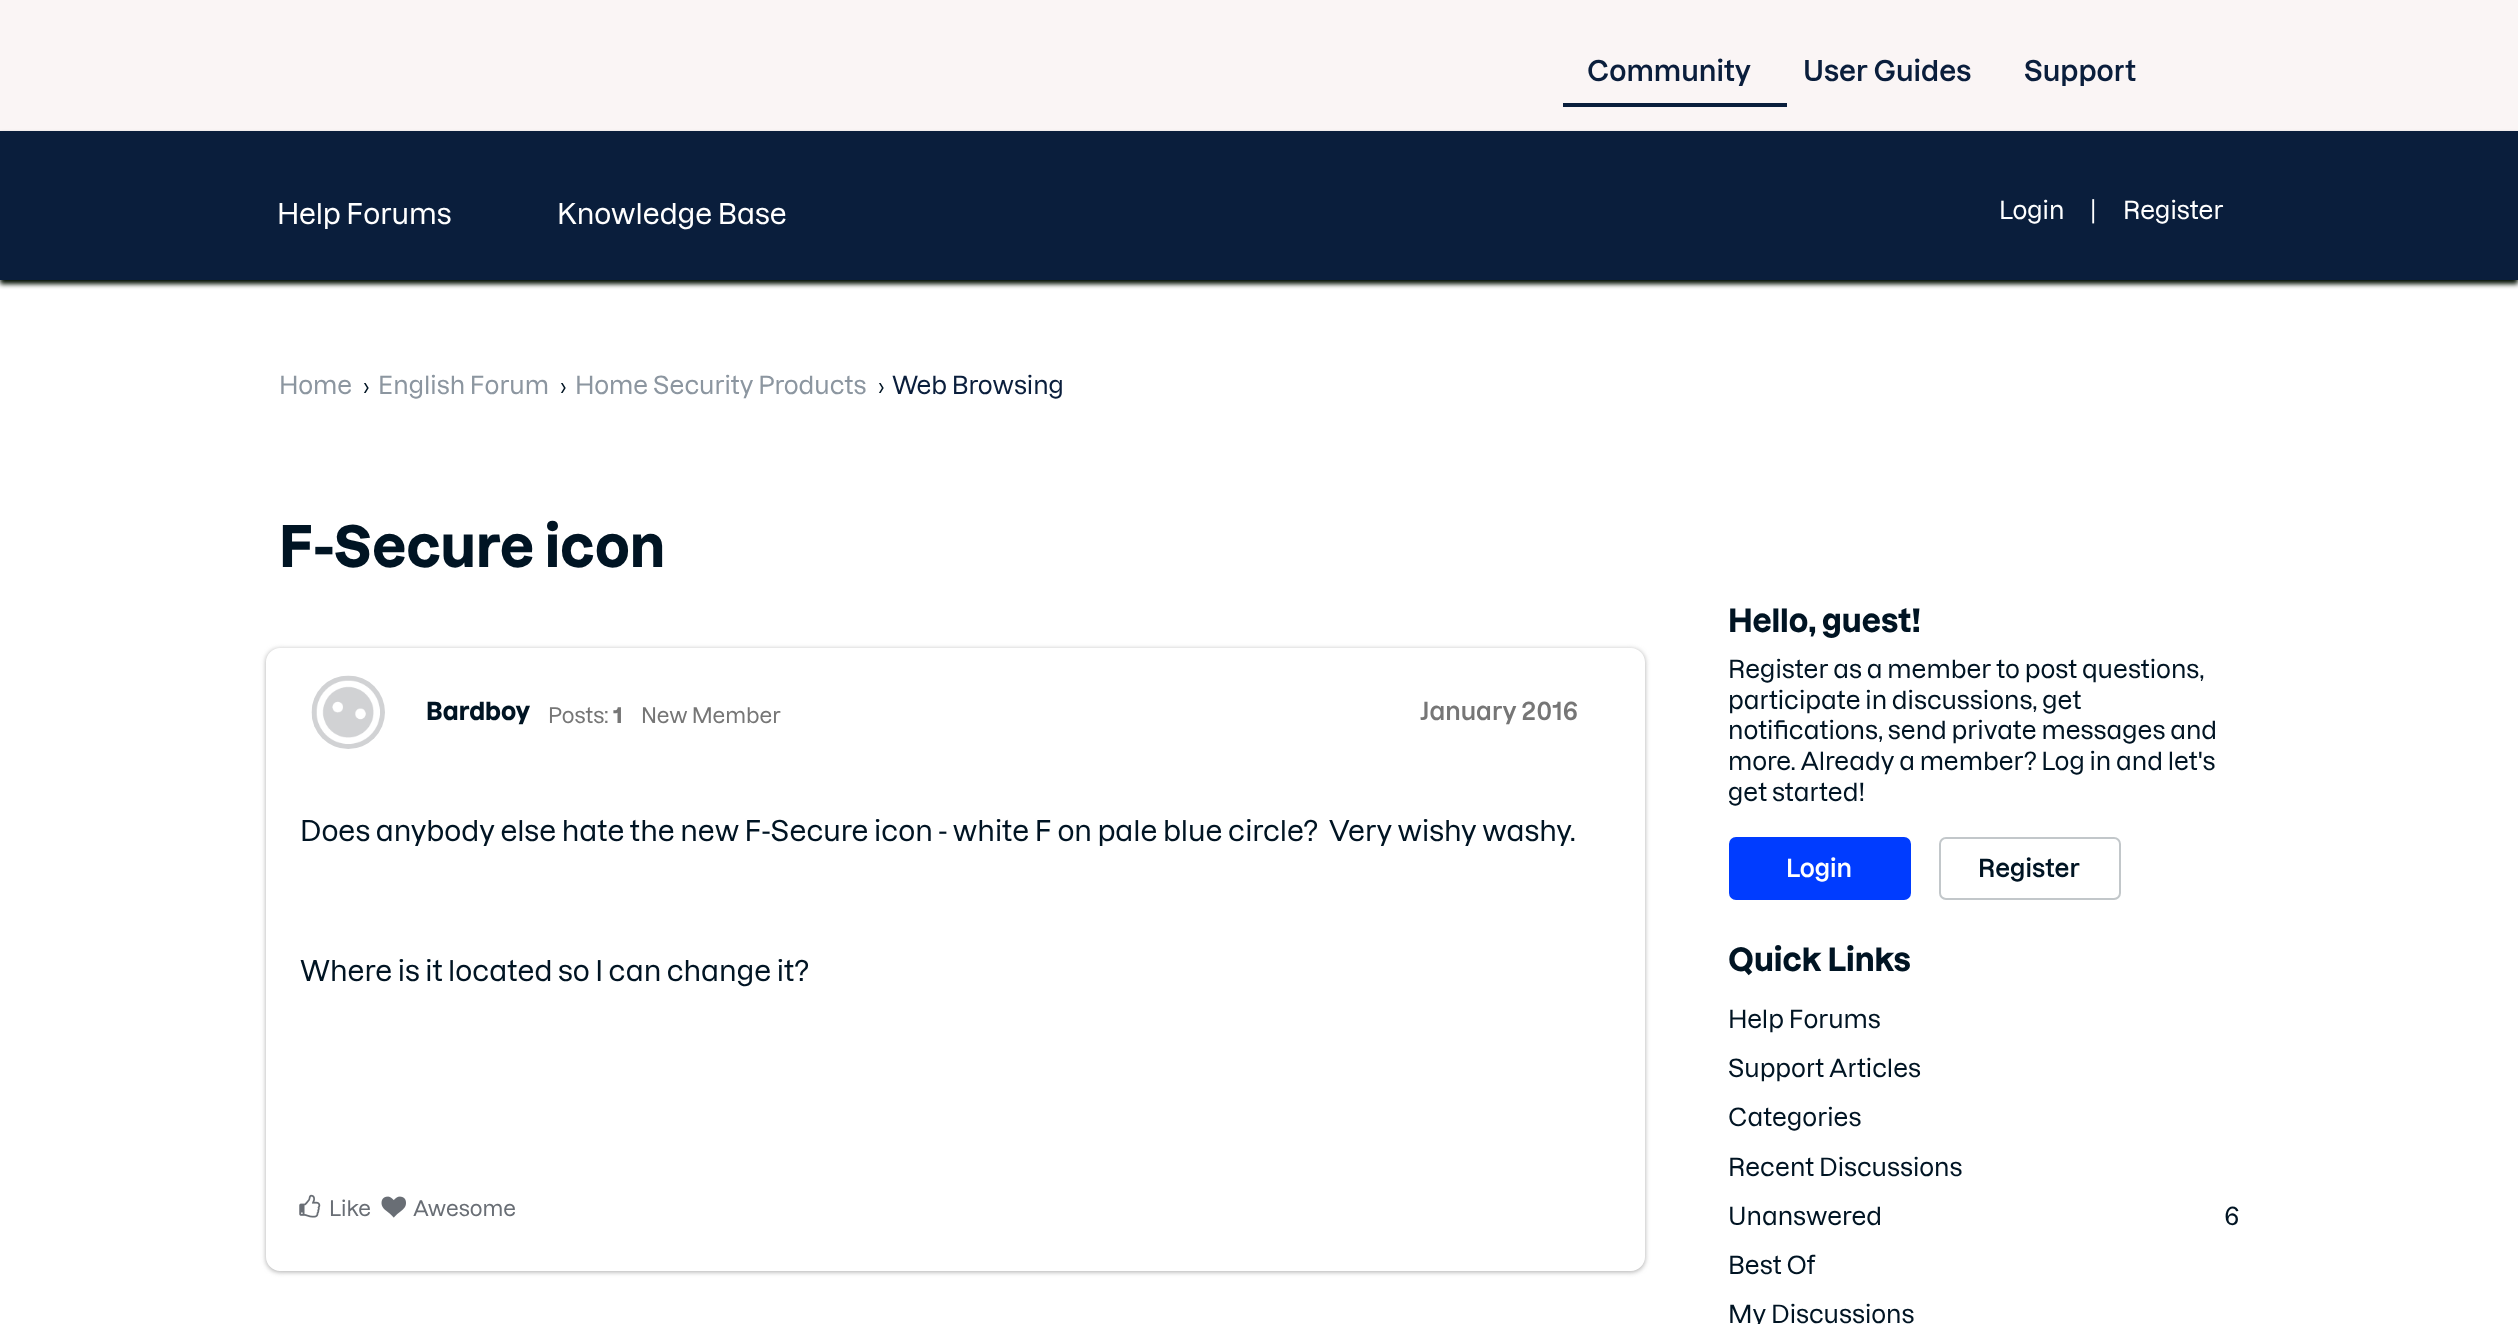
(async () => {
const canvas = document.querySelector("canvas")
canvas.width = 2518
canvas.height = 1324
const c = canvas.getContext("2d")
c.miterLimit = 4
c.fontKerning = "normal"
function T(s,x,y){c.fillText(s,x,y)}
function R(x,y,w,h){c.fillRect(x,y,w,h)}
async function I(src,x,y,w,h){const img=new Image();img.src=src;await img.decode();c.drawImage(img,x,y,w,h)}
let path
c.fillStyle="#fff"
R(0,0,2518,1324)
c.fillStyle="#faf5f5"
R(0,0,2518,131)
c.font="600 28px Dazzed"
c.fillStyle="#0a1e3c"
T("Community",1587,81)
R(1563,103,224,4)
T("User Guides",1803,81)
T("Support",2024,81)
c.fillStyle="#000d00"
c.filter="blur(2.5px)"
c.beginPath()
c.rect(0,135,2518,149)
c.fill()
c.filter="none"
c.fillStyle="#0a1e3c"
R(0,131,2518,149)
c.font="500 28px Dazzed"
c.fillStyle="#fff"
T("Help Forums",277,224)
T("Knowledge Base",557,224)
c.font="500 24.5px Dazzed"
T("Login",1999,219)
T("|",2090,219)
T("Register",2123,219)
c.fillStyle="#8c96a0"
T("Home",279,394)
c.font="500 21px Dazzed"
c.fillStyle="#001423"
T("›",363,394)
c.font="500 24.5px Dazzed"
c.fillStyle="#8c96a0"
T("English Forum",378,394)
c.font="500 21px Dazzed"
c.fillStyle="#001423"
T("›",560,394)
c.font="500 24.5px Dazzed"
c.fillStyle="#8c96a0"
T("Home Security Products",575,394)
c.font="500 21px Dazzed"
c.fillStyle="#001423"
T("›",878,394)
c.font="500 24.5px Dazzed"
c.fillStyle="#0a1e3c"
T("Web Browsing",892,394)
c.font="bold 56px Dazzed"
c.fillStyle="#001423"
T("F-Secure icon",279,567)
c.save()
path = new Path2D("M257 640h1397v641h-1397zm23 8h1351c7.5 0 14 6.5 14 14v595c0 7.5-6.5 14-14 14h-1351c-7.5 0-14-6.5-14-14v-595c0-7.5 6.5-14 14-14z")
c.clip(path,"evenodd")
c.fillStyle="#acacac"
c.filter="blur(2.5px)"
c.beginPath()
c.roundRect(266,649,1379,623,14)
c.fill()
c.filter="none"
c.restore()
await I("1.png",311,675,74,74)
c.font="bold 24.5px Dazzed"
T("Bardboy",426,720)
c.font="500 21px Dazzed"
c.fillStyle="#767676"
T("Posts:",548,723)
c.font="bold 21px Dazzed"
T("1",613,723)
c.font="500 21px Dazzed"
T("New Member",641,723)
c.font="600 24.5px Dazzed"
T("January 2016",1420,720)
c.font="500 28px Dazzed"
c.fillStyle="#001423"
T("Does anybody else hate the new F-Secure icon - white F on pale blue circle?  Very wishy washy.",300,841)
T("Where is it located so I can change it?",300,981)
await I("2.png",299,1194,22,24)
c.font="500 21px Dazzed"
c.fillStyle="#696e75"
T("Like",329,1216)
await I("3.png",381,1196,25,22)
T("Awesome",413,1216)
c.font="bold 31.5px Dazzed"
c.fillStyle="#001423"
T("Hello, guest!",1728,632)
c.font="500 24.5px Dazzed"
T("Register as a member to post questions,",1728,678)
T("participate in discussions, get",1728,709)
T("notifications, send private messages and",1728,739)
T("more. Already a member? Log in and let's",1728,770)
T("get started!",1728,801)
c.fillStyle="#003cff"
c.beginPath()
c.roundRect(1730,838,180,61,6)
c.fill()
c.strokeStyle="#003cff"
c.lineWidth=2
c.stroke()
c.font="600 24.5px Dazzed"
c.fillStyle="#fff"
T("Login",1786,877)
c.beginPath()
c.roundRect(1940,838,180,61,6)
c.strokeStyle="#c2c7ca"
c.stroke()
c.fillStyle="#001423"
T("Register",1978,877)
c.font="bold 31.5px Dazzed"
T("Quick Links",1728,971)
c.font="500 24.5px Dazzed"
T("Help Forums",1728,1028)
T("Support Articles",1728,1077)
T("Categories",1728,1126)
T("Recent Discussions",1728,1176)
T("Unanswered",1728,1225)
T("6",2224,1225)
T("Best Of",1728,1274)
T("My Discussions",1728,1323)
})()
